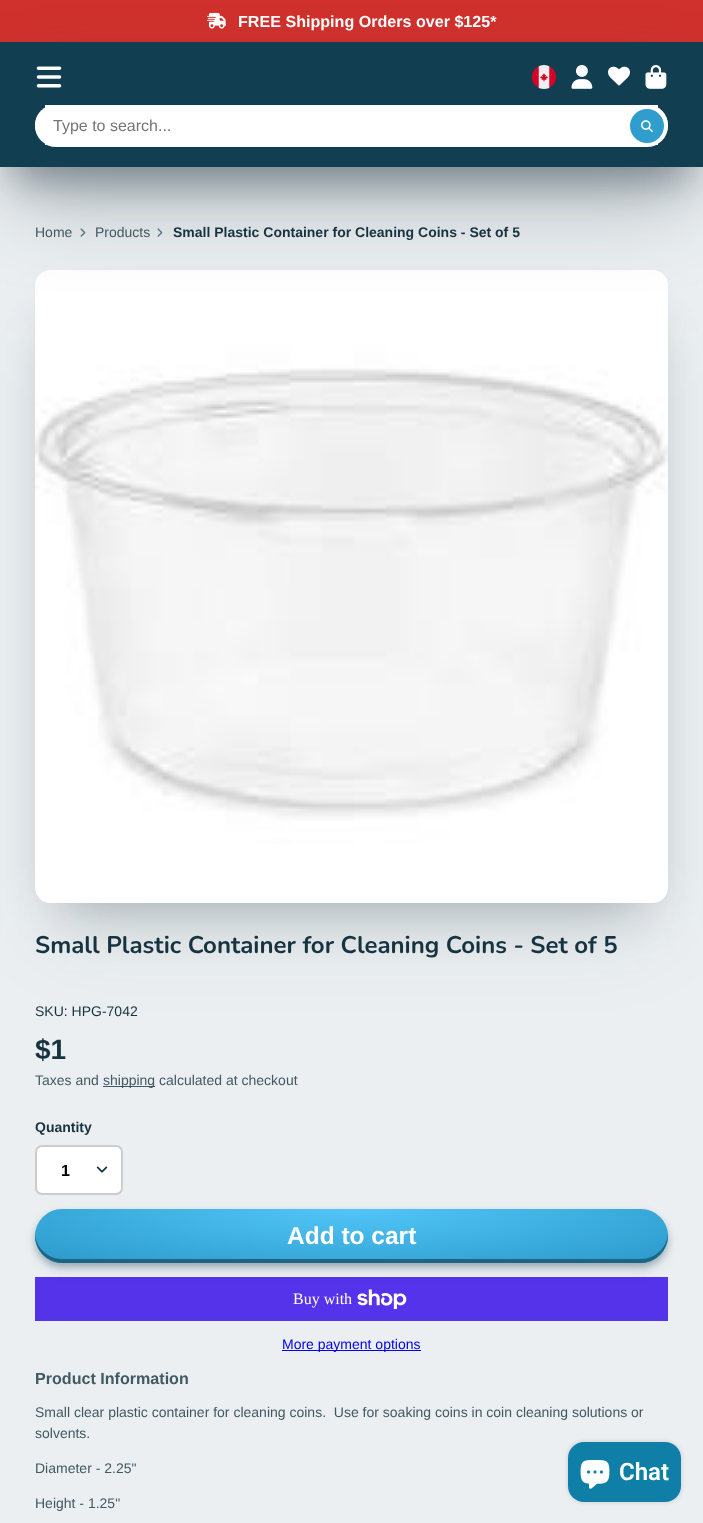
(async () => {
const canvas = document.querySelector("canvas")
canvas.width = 703
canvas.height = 1523
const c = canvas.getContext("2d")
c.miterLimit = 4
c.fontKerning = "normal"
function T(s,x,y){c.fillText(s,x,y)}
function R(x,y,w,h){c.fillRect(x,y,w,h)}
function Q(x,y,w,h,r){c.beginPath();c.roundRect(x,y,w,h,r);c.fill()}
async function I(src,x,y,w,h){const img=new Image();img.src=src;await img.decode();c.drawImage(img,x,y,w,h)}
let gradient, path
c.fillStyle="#ebeff1"
R(0,0,703,1523)
c.fillStyle="#d0312d"
R(0,0,703,42)
await I("1.png",207,12,19,17)
c.font="bold 16.1px Liberation Sans"
c.fillStyle="#fff"
T("FREE Shipping Orders over $125*",238,27)
await I("8.png",80,228,6,9)
await I("8.png",157,228,6,9)
c.fillStyle="#0f242d66"
c.filter="blur(19px)"
c.beginPath()
c.rect(14,82,675,97)
c.fill()
c.filter="none"
c.fillStyle="#0f242d4d"
c.filter="blur(26px)"
c.beginPath()
c.rect(61,323,581,580)
c.fill()
c.filter="none"
c.fillStyle="#0f242d1a"
c.filter="blur(44px)"
c.beginPath()
c.rect(53,331,598,598)
c.fill()
c.filter="none"
await I("9.png",35,270,633,633)
c.fillStyle="#0f242d4d"
c.filter="blur(44px)"
c.beginPath()
c.rect(14,100,675,97)
c.fill()
c.filter="none"
c.fillStyle="#123e51"
R(0,42,703,125)
await I("2.png",36,66,26,22)
await I("3.png",532,65,24,24)
await I("4.png",571,65,22,24)
await I("5.png",608,66,22,20)
await I("6.png",645,65,22,24)
c.fillStyle="#fff"
Q(35,105,633,40,20)
R(45,105,613,40)
Q(35,105,633,42,21)
c.font="16px Liberation Sans"
c.fillStyle="#757575"
T("Type to search...",53,131)
c.fillStyle="#2f9ecf"
c.beginPath()
c.arc(647,126,17,0,7)
c.fill()
await I("7.png",641,120,12,12)
c.font="14px Liberation Sans"
c.fillStyle="#415963"
T("Home",35,237)
T("Products",95,237)
c.font="bold 14px Liberation Sans"
c.fillStyle="#163340"
T("Small Plastic Container for Cleaning Coins - Set of 5",173,237)
c.font="bold 24px Nunito"
T("Small Plastic Container for Cleaning Coins - Set of 5",35,953)
c.font="14px Liberation Sans"
T("SKU: HPG-7042",35,1016)
c.font="bold 28px Liberation Sans"
T("$1",35,1059)
c.font="14px Liberation Sans"
c.fillStyle="#415963"
T("Taxes and",35,1085)
R(103,1086,52,1)
T("shipping calculated at checkout",103,1085)
c.font="bold 14px Liberation Sans"
c.fillStyle="#163340"
T("Quantity",35,1132)
c.fillStyle="#fff"
c.beginPath()
c.roundRect(36,1146,86,48,6)
c.fill()
c.strokeStyle="#ccc"
c.lineWidth=2
c.stroke()
c.font="bold 16.1px Liberation Sans"
c.fillStyle="#000"
T("1",61,1176)
await I("10.png",96,1166,12,7)
c.fillStyle="#5433eb"
R(35,1277,633,44)
await I("11.png",357,1289,50,20)
c.fillStyle="#133f5226"
c.filter="blur(7.5px)"
c.beginPath()
c.roundRect(39,1220,625,47,23.5)
c.fill()
c.filter="none"
c.fillStyle="#133f524d"
c.filter="blur(3.5px)"
c.beginPath()
c.roundRect(35,1213,633,54,27)
c.fill()
c.filter="none"
c.save()
c.beginPath()
c.roundRect(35,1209,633,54,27)
c.clip()
c.fillStyle="#133f5226"
c.filter="blur(7.5px)"
c.beginPath()
c.roundRect(39,1220,625,47,23.5)
c.fill()
c.filter="none"
c.fillStyle="#133f524d"
c.filter="blur(3.5px)"
c.beginPath()
c.roundRect(35,1213,633,54,27)
c.fill()
c.filter="none"
c.restore()
gradient = c.createRadialGradient(352,7126.74,0,352,7126.74,448)
gradient.addColorStop(0,"#52c6f9")
gradient.addColorStop(.9,"#2f9ecf")
c.fillStyle = gradient
c.beginPath()
c.roundRect(35,1209,633,54,27)
c.save()
c.clip()
c.scale(1,76 / 448)
c.fillRect(0,0,703,8978)
c.restore()
c.fillStyle="#1e6584"
path = new Path2D("M35 1234c-1 15 12 29 27 29h579c15 0 28-14 27-29c-1 14-13 25-27 25h-579c-14 0-26-11-27-25z")
c.fill(path)
c.font="bold 24.5px Liberation Sans"
c.fillStyle="#fff"
T("Add to cart",287,1244)
c.font="16px Liberation Serif"
T("Buy with",293,1304)
c.fillStyle="#00e"
R(282,1350,139,1)
c.font="14px Liberation Sans"
T("More payment options",282,1349)
c.font="bold 16.1px Liberation Sans"
c.fillStyle="#415963"
T("Product Information",35,1384)
c.font="14px Liberation Sans"
T("Small clear plastic container for cleaning coins.  Use for soaking coins in coin cleaning solutions or",35,1417)
T("solvents.",35,1438)
T("Diameter - 2.25\"",35,1473)
T("Height - 1.25\"",35,1508)
c.fillStyle="#00000026"
c.filter="blur(2.5px)"
c.beginPath()
c.roundRect(568,1442,113,60,16)
c.fill()
c.filter="none"
c.fillStyle="#107fa8"
Q(568,1442,113,60,16)
await I("12.png",580,1460,30,29)
c.font="600 24px Roboto"
c.fillStyle="#fff"
T("Chat",619,1480)
})()
